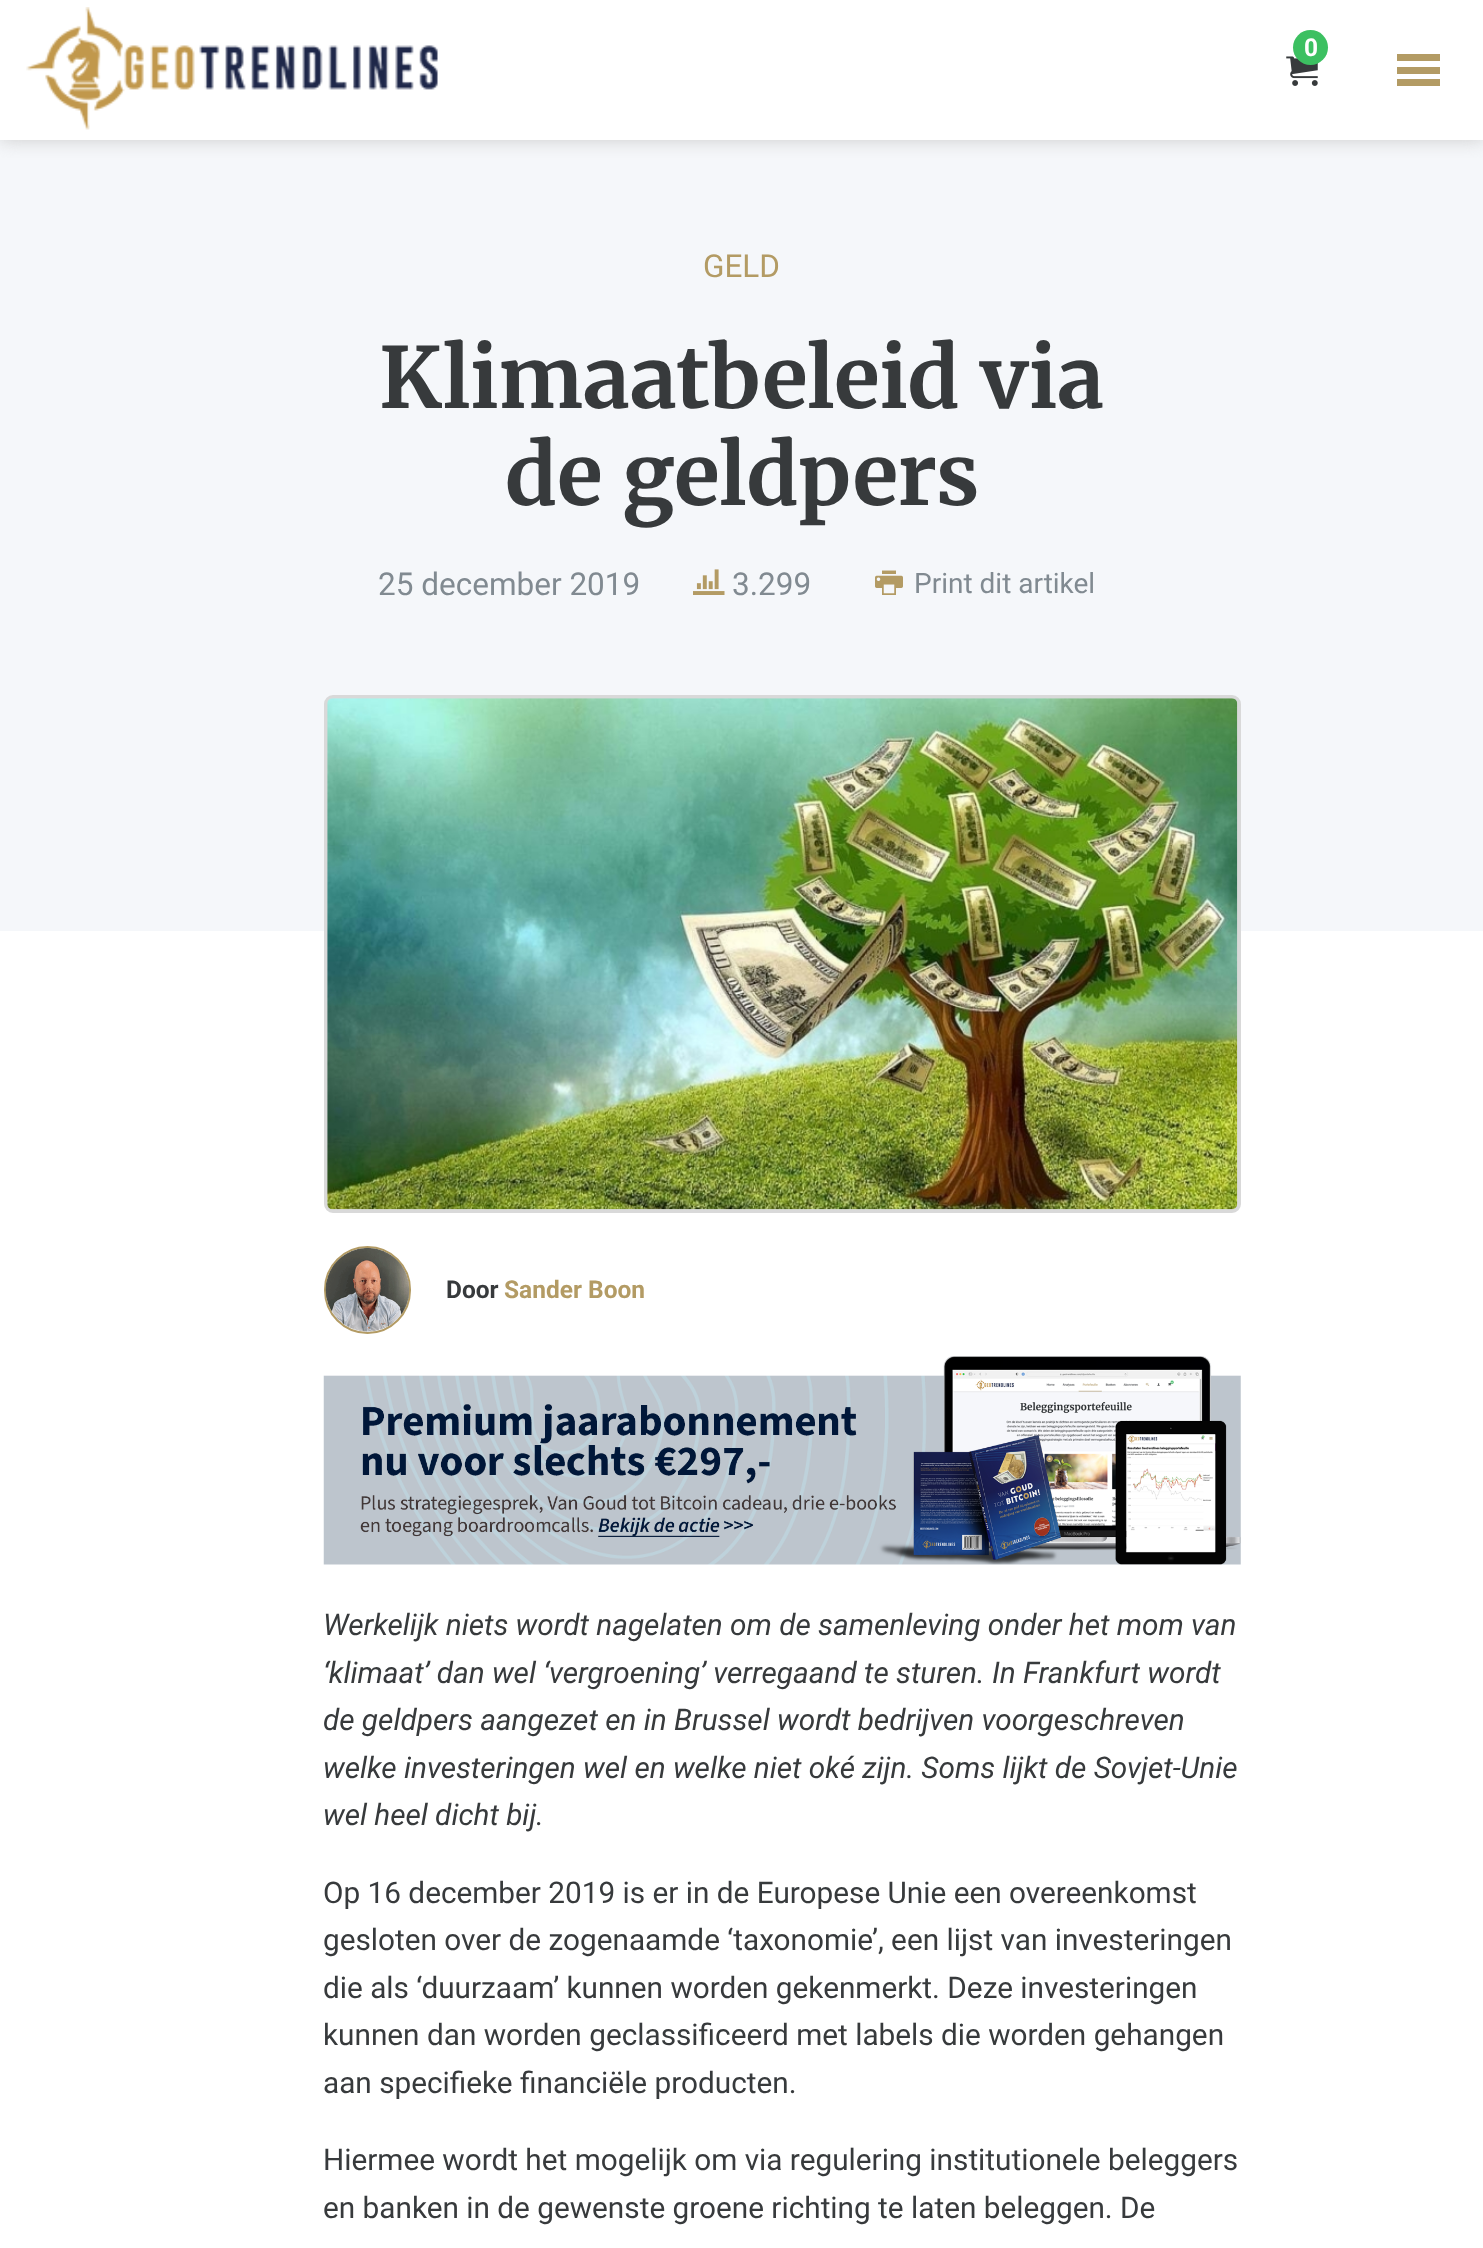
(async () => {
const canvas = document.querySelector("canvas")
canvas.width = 1483
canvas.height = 2248
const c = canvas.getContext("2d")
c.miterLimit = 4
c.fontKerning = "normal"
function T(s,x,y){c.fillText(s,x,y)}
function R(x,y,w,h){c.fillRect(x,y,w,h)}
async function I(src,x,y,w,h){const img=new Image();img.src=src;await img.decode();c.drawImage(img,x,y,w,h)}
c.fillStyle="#fff"
R(0,0,1483,2248)
c.fillStyle="#f5f7fa"
R(0,140,1483,791)
c.save()
c.beginPath()
c.rect(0,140,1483,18)
c.clip()
c.fillStyle="#ccc"
c.filter="blur(9px)"
c.beginPath()
c.rect(0,0,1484,140)
c.fill()
c.filter="none"
c.restore()
await I("1.png",26,7,412,123)
await I("2.png",1286,56,32,30)
c.fillStyle="#3cc061"
c.beginPath()
c.arc(1310.5,47.5,17.5,0,7)
c.fill()
c.font="bold 24.5px Roboto"
c.fillStyle="#fff"
T("0",1304,56)
c.fillStyle="#b39b64"
R(1397,67,43,7)
R(1397,54,43,7)
R(1397,79,43,7)
c.font="31.5px Roboto"
T("GELD",703,277)
c.font="300 84px Merriweather"
c.fillStyle="#373a3c"
T("Klimaatbeleid via",379,408)
T("de geldpers",505,505)
c.font="31.5px Roboto"
c.fillStyle="#818a91"
T("25 december 2019",378,595)
await I("3.png",693,569,32,26)
T("3.299",732,595)
await I("4.png",875,570,28,25)
c.font="28px Roboto"
T("Print dit artikel",914,593)
c.beginPath()
c.roundRect(326,697,913,514,7)
c.strokeStyle="#d9d9d9"
c.lineWidth=4
c.stroke()
await I("5.png",327,698,911,512)
c.beginPath()
c.roundRect(325,1247,85,86,42.5)
c.strokeStyle="#b39b64"
c.lineWidth=2
c.stroke()
await I("6.png",325,1247,85,85)
c.font="bold 24.5px Roboto"
c.fillStyle="#373a3c"
T("Door",446,1298)
c.fillStyle="#b39b64"
T("Sander Boon",504,1298)
await I("7.png",323,1356,918,209)
c.font="italic 29.75px Roboto"
c.fillStyle="#373a3c"
T("Werkelijk niets wordt nagelaten om de samenleving onder het mom van",323,1635)
T("‘klimaat’ dan wel ‘vergroening’ verregaand te sturen. In Frankfurt wordt",323,1683)
T("de geldpers aangezet en in Brussel wordt bedrijven voorgeschreven",323,1730)
T("welke investeringen wel en welke niet oké zijn. Soms lijkt de Sovjet-Unie",323,1778)
T("wel heel dicht bij.",323,1825)
c.font="29.75px Roboto"
T("Op 16 december 2019 is er in de Europese Unie een overeenkomst",323,1903)
T("gesloten over de zogenaamde ‘taxonomie’, een lijst van investeringen",323,1950)
T("die als ‘duurzaam’ kunnen worden gekenmerkt. Deze investeringen",323,1998)
T("kunnen dan worden geclassificeerd met labels die worden gehangen",323,2045)
T("aan specifieke financiële producten.",323,2093)
T("Hiermee wordt het mogelijk om via regulering institutionele beleggers",323,2170)
T("en banken in de gewenste groene richting te laten beleggen. De",323,2218)
})()
